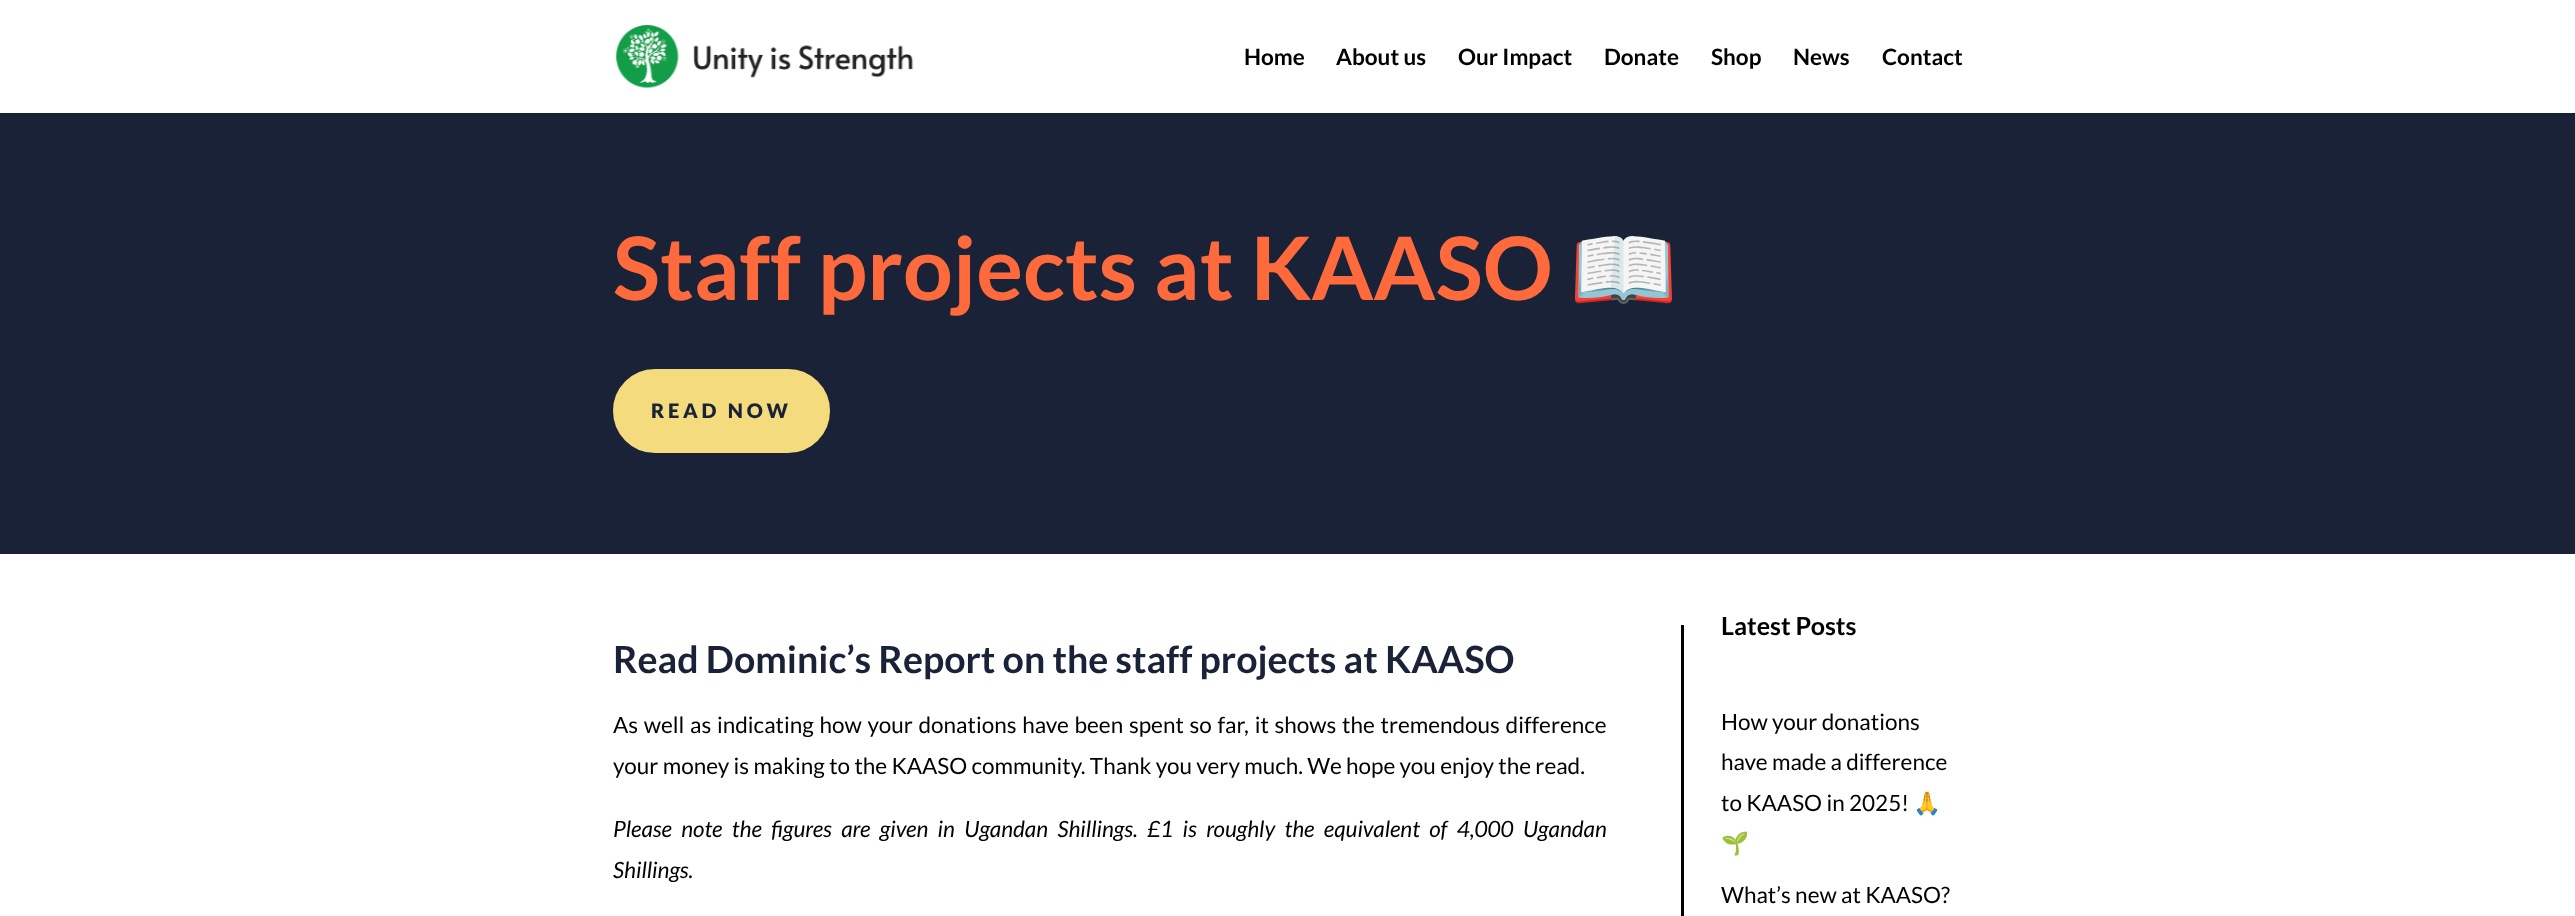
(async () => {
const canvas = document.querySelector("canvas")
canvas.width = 2575
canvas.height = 916
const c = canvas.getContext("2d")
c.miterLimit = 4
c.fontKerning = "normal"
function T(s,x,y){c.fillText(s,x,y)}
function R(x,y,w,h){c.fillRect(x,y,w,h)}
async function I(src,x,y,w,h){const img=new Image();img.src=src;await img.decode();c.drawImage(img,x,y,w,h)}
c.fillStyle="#fff"
R(0,0,2575,916)
c.fillStyle="#171f32"
R(0,113,2575,1)
await I("1.png",616,25,298,63)
c.font="bold 22.5px Lato"
c.fillStyle="#000"
T("Home",1244,65)
T("About us",1336,65)
T("Our Impact",1458,65)
T("Donate",1604,65)
T("Shop",1711,65)
T("News",1793,65)
T("Contact",1882,65)
c.fillStyle="#1a2238"
R(0,114,2575,440)
c.font="bold 87.5px Lato"
c.fillStyle="#ff6a3d"
T("Staff projects at KAASO",613,300)
c.font="bold 87.5px Noto Color Emoji"
T("📖",1569,300)
c.fillStyle="#f4db7d"
c.beginPath()
c.roundRect(622.5,378.5,198,65,32.5)
c.fill()
c.strokeStyle="#f4db7d"
c.lineWidth=19
c.stroke()
c.letterSpacing="3.75px"
c.font="900 20px Lato"
c.fillStyle="#1a2238"
T("READ NOW",651,418)
c.letterSpacing="0px"
c.font="bold 37.5px Lato"
T("Read Dominic’s Report on the staff projects at KAASO",613,673)
c.wordSpacing="1.4px"
c.font="22.5px Lato"
c.fillStyle="#000"
T("As well as indicating how your donations have been spent so far, it shows the tremendous difference",613,733)
c.wordSpacing="0px"
T("your money is making to the KAASO community. Thank you very much. We hope you enjoy the read.",613,774)
c.wordSpacing="5px"
c.font="italic 22.5px Lato"
T("Please note the figures are given in Ugandan Shillings. £1 is roughly the equivalent of 4,000 Ugandan",613,837)
c.wordSpacing="0px"
T("Shillings.",613,878)
R(1681,625,3,291)
c.font="bold 25px Lato"
T("Latest Posts",1721,635)
c.font="22.5px Lato"
T("How your donations",1721,730)
T("have made a difference",1721,770)
T("to KAASO in 2025!",1721,811)
c.font="22.5px Noto Color Emoji"
T("🙏",1913,811)
T("🌱",1721,851)
c.font="22.5px Lato"
T("What’s new at KAASO?",1721,903)
})()
